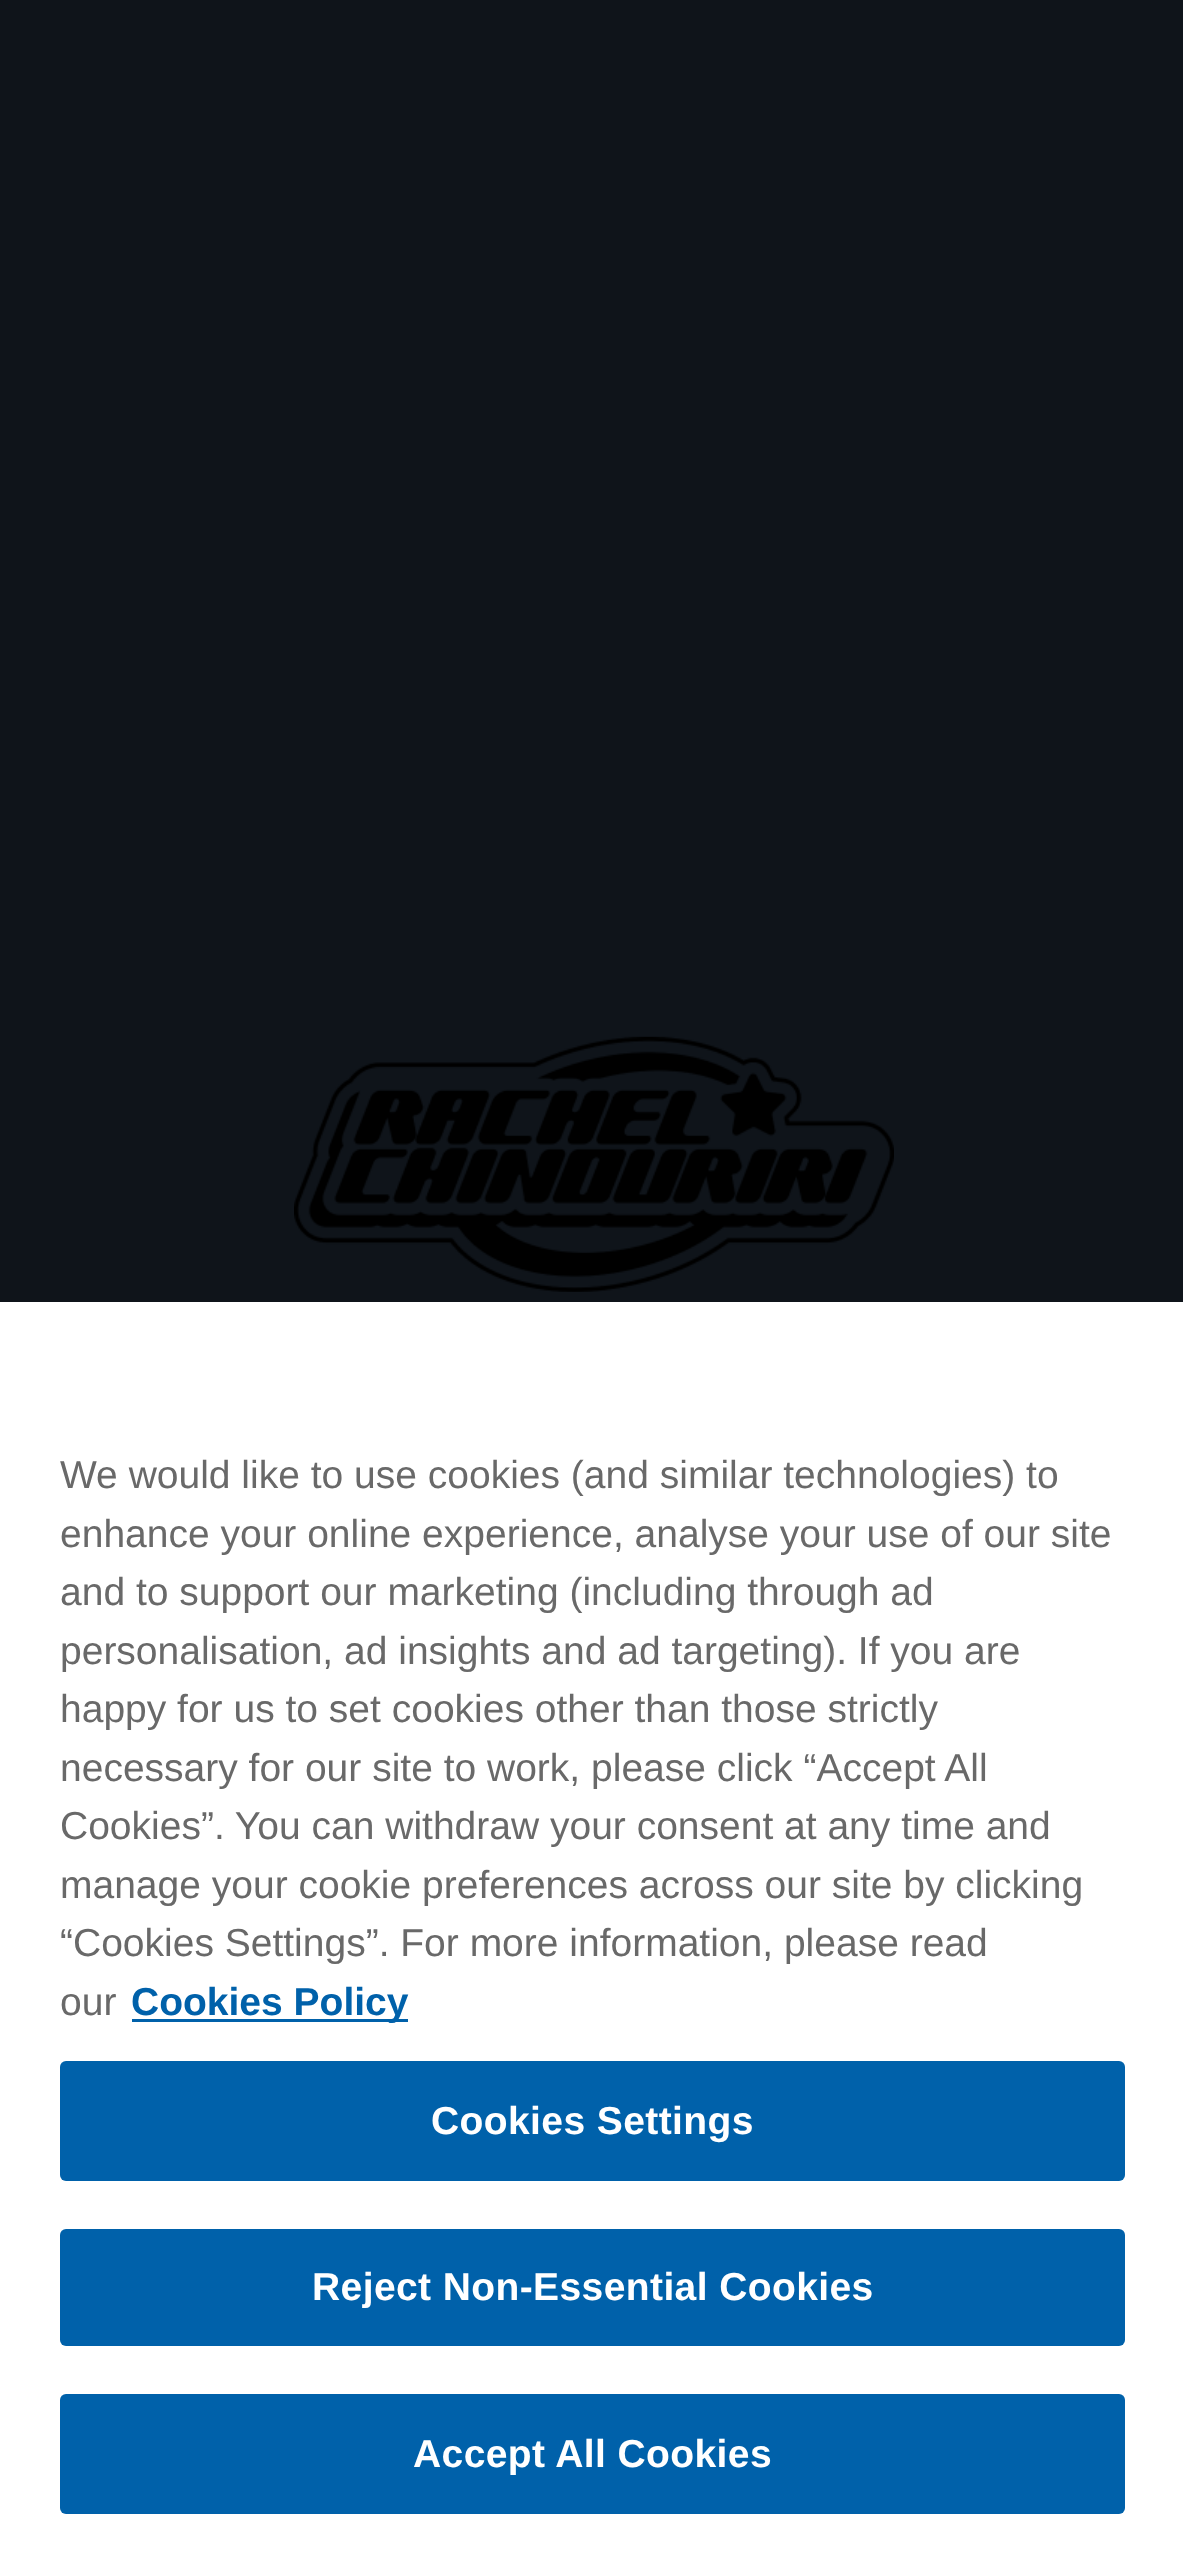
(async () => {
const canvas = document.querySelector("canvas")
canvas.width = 1183
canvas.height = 2561
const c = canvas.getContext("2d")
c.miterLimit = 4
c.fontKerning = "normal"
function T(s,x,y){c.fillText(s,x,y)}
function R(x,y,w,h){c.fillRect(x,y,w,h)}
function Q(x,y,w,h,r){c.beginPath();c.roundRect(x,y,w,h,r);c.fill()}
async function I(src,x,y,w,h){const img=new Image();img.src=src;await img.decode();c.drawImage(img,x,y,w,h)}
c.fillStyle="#0f141a"
R(0,0,1183,2561)
await I("1.png",294,1036,600,256)
c.fillStyle="#fff"
R(0,1302,1183,1259)
c.font="39px Liberation Sans"
c.fillStyle="#696969"
T("We would like to use cookies (and similar technologies) to",60,1488)
T("enhance your online experience, analyse your use of our site",60,1547)
T("and to support our marketing (including through ad",60,1605)
T("personalisation, ad insights and ad targeting). If you are",60,1664)
T("happy for us to set cookies other than those strictly",60,1722)
T("necessary for our site to work, please click “Accept All",60,1781)
T("Cookies”. You can withdraw your consent at any time and",60,1839)
T("manage your cookie preferences across our site by clicking",60,1898)
T("“Cookies Settings”. For more information, please read",60,1956)
T("our",60,2015)
c.fillStyle="#0061aa"
R(132,2019,276,3)
c.font="bold 39px Liberation Sans"
T("Cookies Policy",131,2015)
Q(60,2061,1065,120,6)
c.letterSpacing="0.4px"
c.fillStyle="#fff"
T("Cookies Settings",431,2134)
c.fillStyle="#0061aa"
Q(60,2229,1065,117,6)
c.fillStyle="#fff"
T("Reject Non-Essential Cookies",312,2300)
c.fillStyle="#0061aa"
Q(60,2394,1065,120,6)
c.fillStyle="#fff"
T("Accept All Cookies",413,2467)
})()
